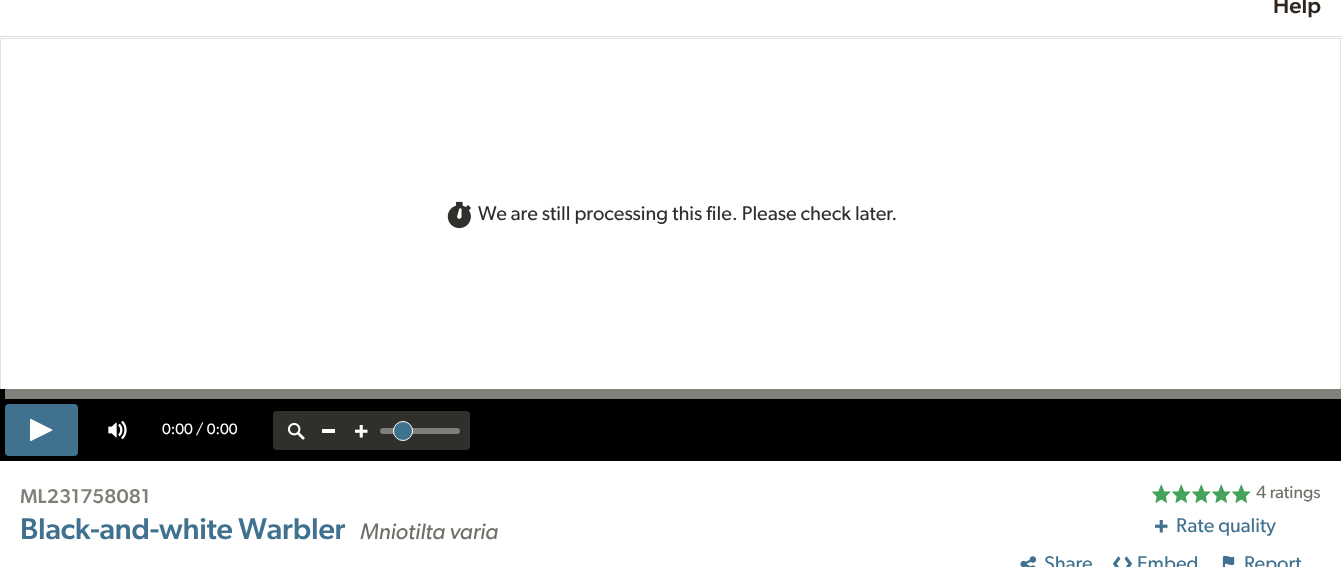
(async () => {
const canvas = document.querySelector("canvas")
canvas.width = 1341
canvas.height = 567
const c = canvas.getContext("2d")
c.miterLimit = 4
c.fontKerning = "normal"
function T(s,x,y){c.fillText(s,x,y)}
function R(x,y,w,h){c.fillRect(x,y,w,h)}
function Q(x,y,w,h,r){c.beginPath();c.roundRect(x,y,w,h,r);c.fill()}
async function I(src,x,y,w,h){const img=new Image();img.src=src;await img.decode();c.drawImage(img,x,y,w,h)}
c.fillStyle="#fff"
R(0,0,1341,567)
c.fillStyle="#dbdbd9"
R(0,36,1341,1)
c.font="500 22.5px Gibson"
c.fillStyle="#2e261f"
T("Help",1273,13)
c.fillStyle="#e5e3dc"
R(0,38,1341,1)
R(1340,38,1,351)
R(0,38,1,351)
await I("1.png",447,201,24,28)
c.font="20px Gibson"
c.fillStyle="#302f2c"
T("We are still processing this file. Please check later.",478,220)
c.fillStyle="#817f79"
R(5,389,1336,10)
c.fillStyle="#000"
R(0,389,5,10)
R(0,399,1341,62)
c.fillStyle="#40718f"
Q(5,404,73,52,4)
await I("2.png",30,418,23,24)
await I("3.png",108,420,19,20)
c.font="15px Gibson"
c.fillStyle="#fff"
T("0:00 / 0:00",162,434)
c.fillStyle="#302f2c"
Q(273,411,197,39,4)
await I("4.png",287,422,18,18)
c.fillStyle="#fff"
R(322,429,13,4)
await I("5.png",355,425,13,13)
c.fillStyle="#817f79"
Q(380,428,80,6,3)
c.fillStyle="#40718f"
c.beginPath()
c.arc(403,431,9.5,0,7)
c.fill()
c.strokeStyle="#fff"
c.stroke()
c.letterSpacing="0.1px"
c.font="500 20px Gibson"
c.fillStyle="#817f79"
T("ML231758081",20,503)
c.letterSpacing="-0.2px"
c.font="500 30px Gibson"
c.fillStyle="#40718f"
T("Black-and-white Warbler",20,539)
c.letterSpacing="0px"
c.font="italic 22.5px Gibson"
c.fillStyle="#6f6e67"
T("Mniotilta varia",360,539)
await I("6.png",1152,484,19,19)
await I("6.png",1172,484,19,19)
await I("6.png",1192,484,19,19)
await I("6.png",1212,484,19,19)
await I("6.png",1232,484,19,19)
c.font="17.5px Gibson"
T("4 ratings",1256,498)
await I("7.png",1155,520,13,13)
c.font="20px Gibson"
c.fillStyle="#40718f"
T("Rate quality",1176,532)
await I("8.png",1020,556,17,11)
T("Share",1044,570)
await I("9.png",1113,556,19,11)
T("Embed",1137,570)
await I("10.png",1222,555,13,12)
T("Report",1244,570)
})()
